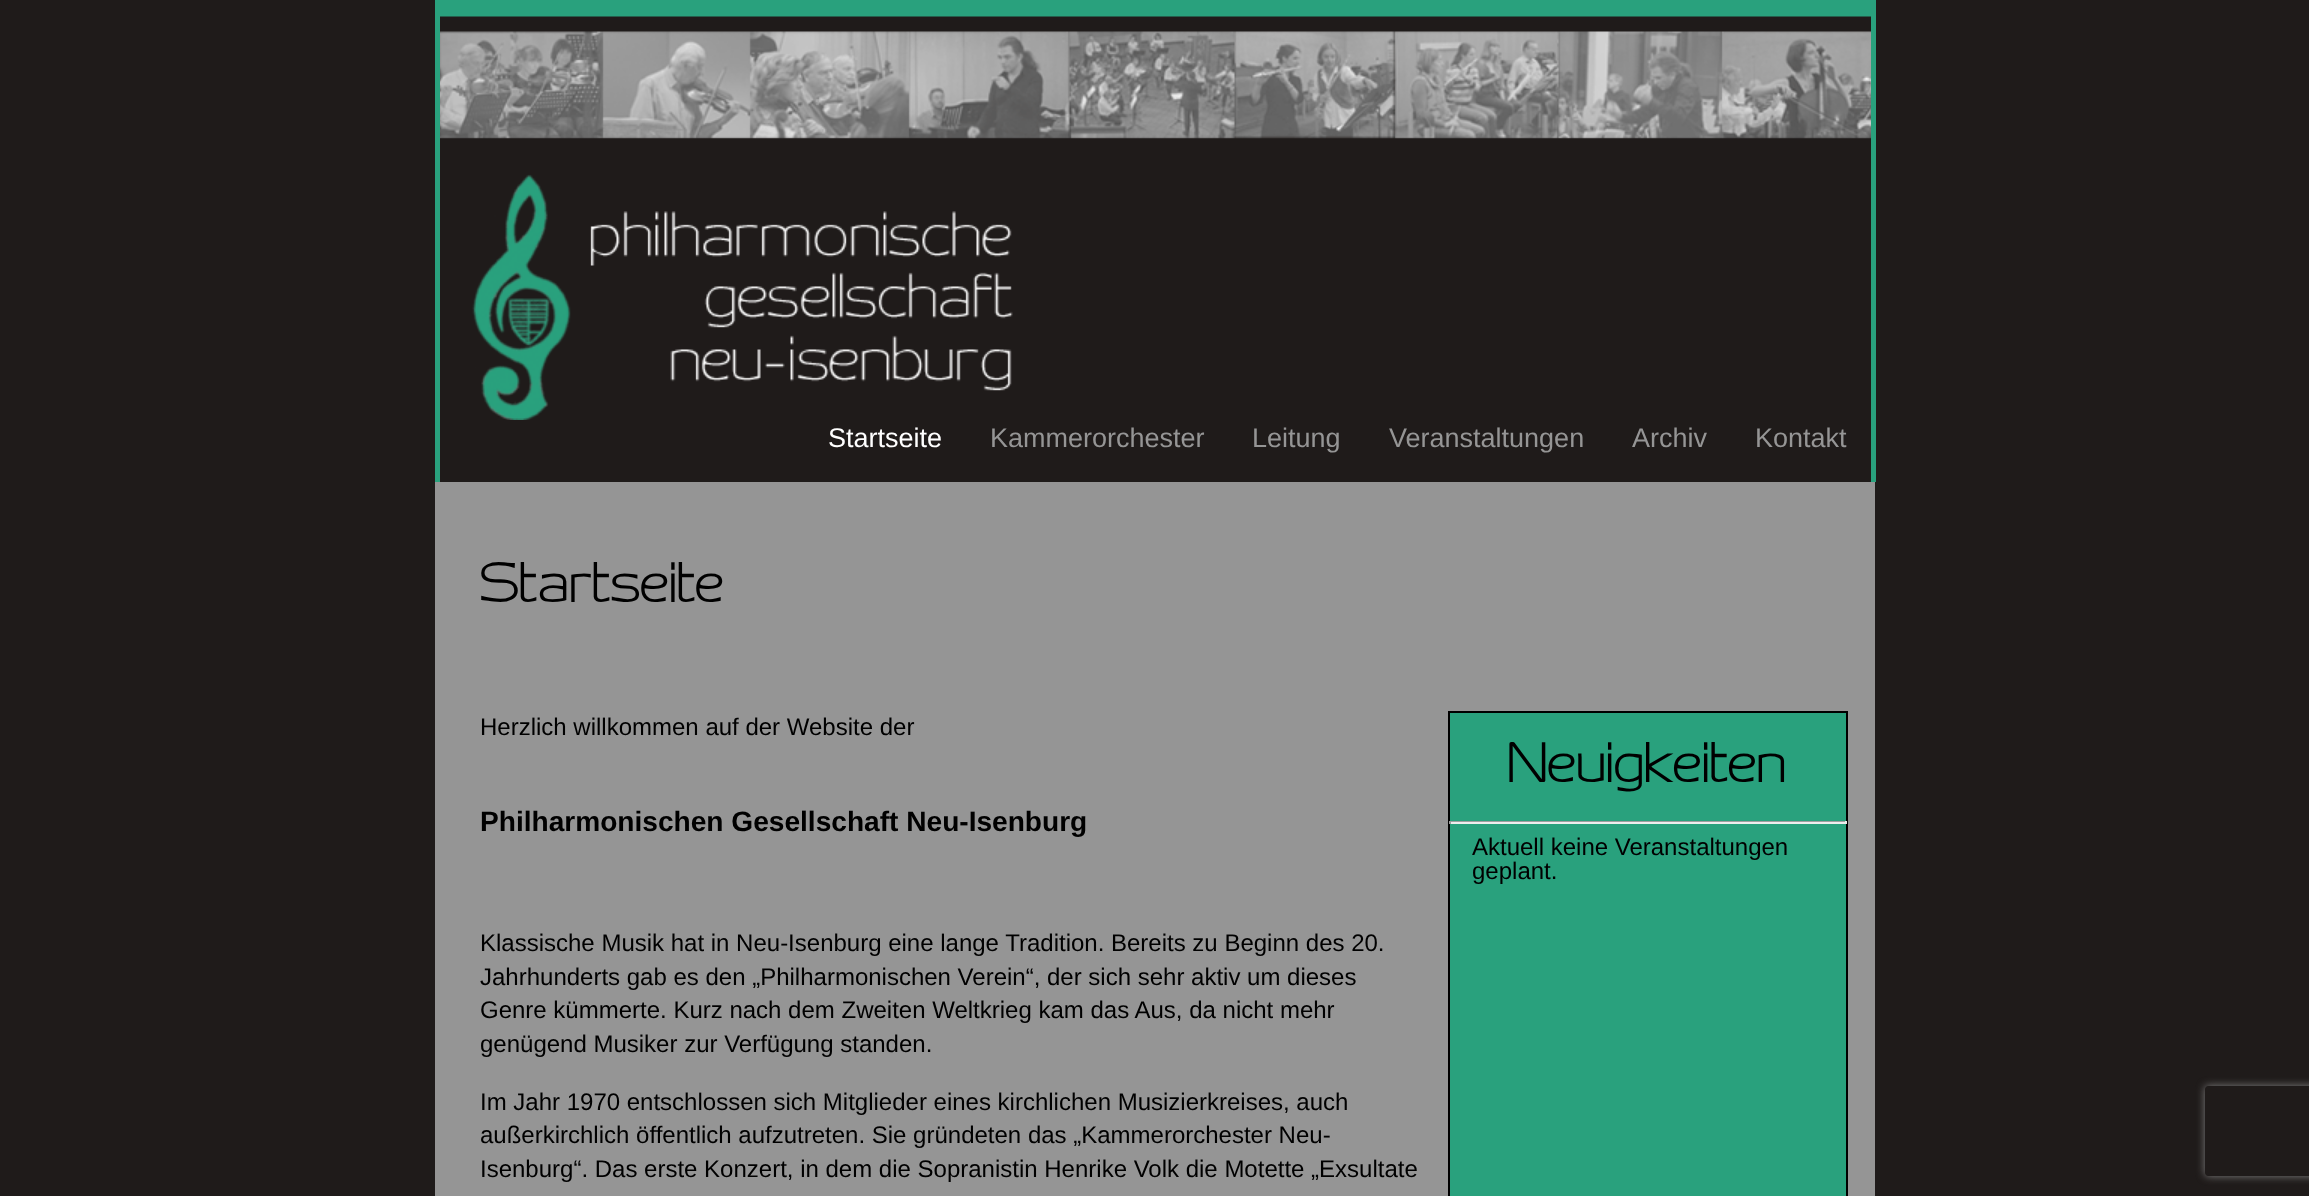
(async () => {
const canvas = document.querySelector("canvas")
canvas.width = 2309
canvas.height = 1196
const c = canvas.getContext("2d")
c.miterLimit = 4
c.fontKerning = "normal"
function T(s,x,y){c.fillText(s,x,y)}
function R(x,y,w,h){c.fillRect(x,y,w,h)}
async function I(src,x,y,w,h){const img=new Image();img.src=src;await img.decode();c.drawImage(img,x,y,w,h)}
let path
c.fillStyle="#1f1b1a"
R(0,0,2309,1196)
await I("1.png",440,0,1431,420)
c.fillStyle="#29a17d"
R(1871,0,5,482)
R(435,0,5,482)
c.font="27px Liberation Sans"
c.fillStyle="#fff"
T("Startseite",828,447)
c.fillStyle="#959595"
T("Kammerorchester",990,447)
T("Leitung",1252,447)
T("Veranstaltungen",1389,447)
T("Archiv",1632,447)
T("Kontakt",1755,447)
R(435,482,1440,714)
c.letterSpacing="3px"
c.font="bold 48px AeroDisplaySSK"
c.fillStyle="#000"
T("Startseite",480,602)
c.letterSpacing="0px"
c.font="24px Liberation Sans"
T("Herzlich willkommen auf der Website der",480,735)
c.font="bold 28.1px Liberation Sans"
T("Philharmonischen Gesellschaft Neu-Isenburg",480,831)
c.fillStyle="#29a17d"
c.beginPath()
c.rect(1449,712,398,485)
c.fill()
c.strokeStyle="#000"
c.lineWidth=2
c.stroke()
c.letterSpacing="3px"
c.font="bold 48px AeroDisplaySSK"
c.fillStyle="#000"
T("Neuigkeiten",1508,782)
c.fillStyle="#9f9f9f"
R(1449,821,398,1)
c.fillStyle="#eee"
R(1845,821,2,3)
R(1449,822,398,2)
c.fillStyle="#9f9f9f"
R(1449,821,2,3)
c.letterSpacing="0px"
c.font="24px Liberation Sans"
c.fillStyle="#000"
T("Aktuell keine Veranstaltungen",1472,855)
T("geplant.",1472,879)
T("Klassische Musik hat in Neu-Isenburg eine lange Tradition. Bereits zu Beginn des 20.",480,951)
T("Jahrhunderts gab es den „Philharmonischen Verein“, der sich sehr aktiv um dieses",480,985)
T("Genre kümmerte. Kurz nach dem Zweiten Weltkrieg kam das Aus, da nicht mehr",480,1018)
T("genügend Musiker zur Verfügung standen.",480,1052)
T("Im Jahr 1970 entschlossen sich Mitglieder eines kirchlichen Musizierkreises, auch",480,1110)
T("außerkirchlich öffentlich aufzutreten. Sie gründeten das „Kammerorchester Neu-",480,1143)
T("Isenburg“. Das erste Konzert, in dem die Sopranistin Henrike Volk die Motette „Exsultate",480,1177)
c.save()
path = new Path2D("M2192 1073h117v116h-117zm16 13h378c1.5 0 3 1.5 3 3v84c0 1.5-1.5 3-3 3h-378c-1.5 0-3-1.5-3-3v-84c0-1.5 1.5-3 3-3z")
c.clip(path,"evenodd")
c.fillStyle="#808080"
c.filter="blur(4px)"
c.beginPath()
c.roundRect(2205,1086,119,90,3)
c.fill()
c.filter="none"
c.restore()
})()
